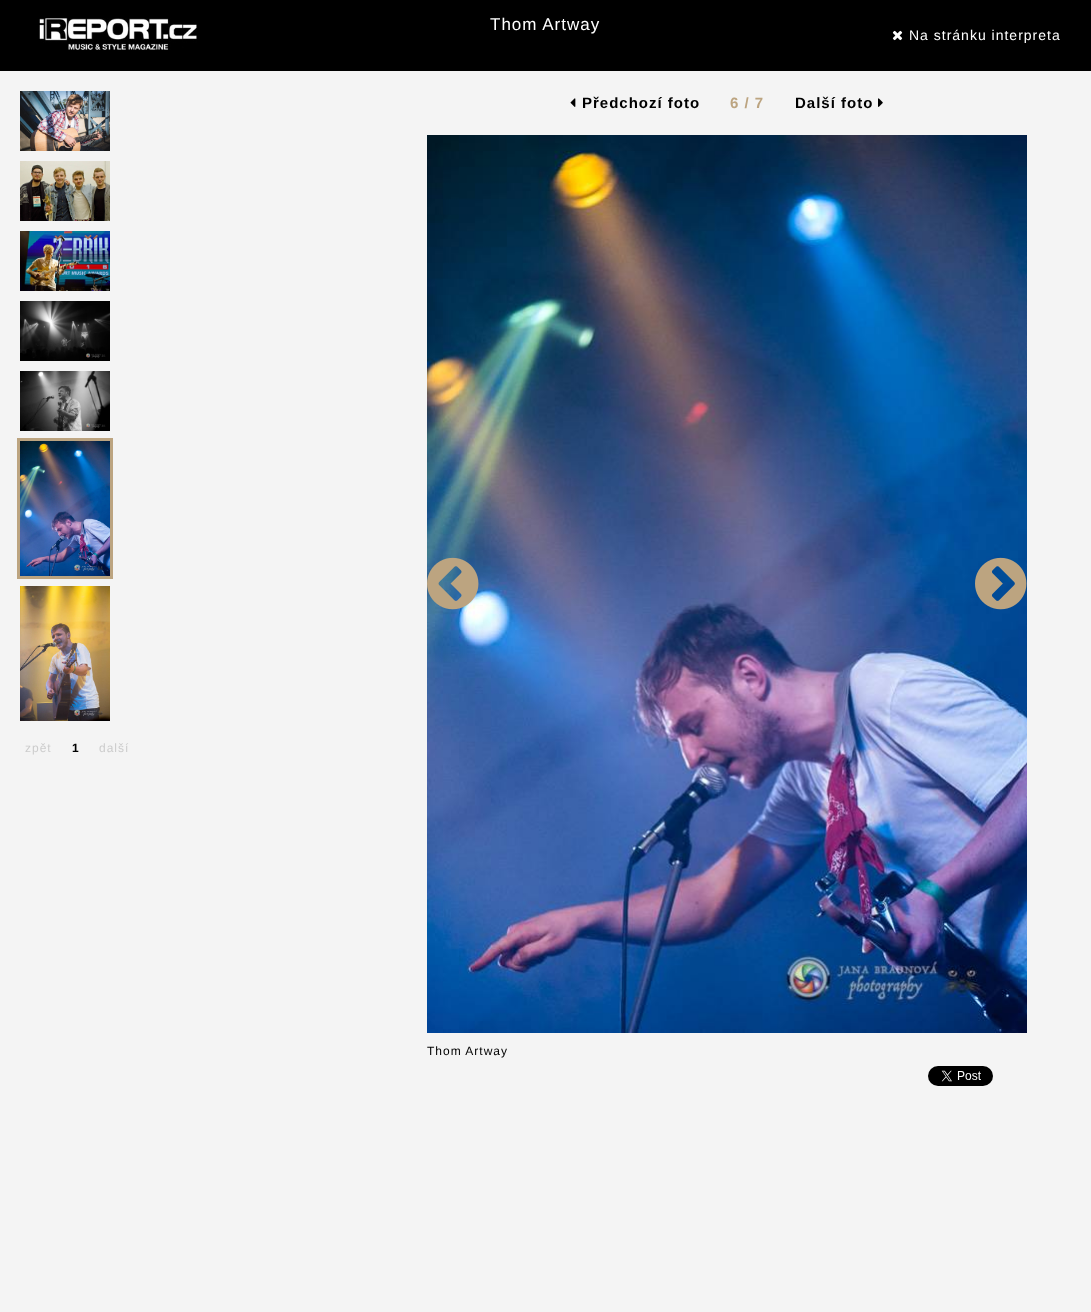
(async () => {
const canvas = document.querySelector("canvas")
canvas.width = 1091
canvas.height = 1312
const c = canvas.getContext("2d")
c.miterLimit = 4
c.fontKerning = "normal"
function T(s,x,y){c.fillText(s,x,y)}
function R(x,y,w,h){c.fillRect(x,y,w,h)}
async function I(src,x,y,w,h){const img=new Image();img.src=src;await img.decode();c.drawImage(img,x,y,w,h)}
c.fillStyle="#f4f4f4"
R(0,0,1091,1312)
c.fillStyle="#000"
R(0,0,1091,71)
await I("1.png",39,18,158,32)
c.letterSpacing="1px"
c.font="17px Liberation Sans"
c.fillStyle="#fff"
T("Thom Artway",490,30)
await I("2.png",892,30,11,11)
c.font="14px Liberation Sans"
T("Na stránku interpreta",909,40)
await I("3.png",20,91,90,60)
await I("4.png",20,161,90,60)
await I("5.png",20,231,90,60)
await I("6.png",20,301,90,60)
await I("7.png",20,371,90,60)
c.strokeStyle="#bca480"
c.lineWidth=3
c.strokeRect(18.5,439.5,93,138)
await I("8.png",20,441,90,135)
await I("9.png",20,586,90,135)
c.font="12px Liberation Sans"
c.fillStyle="#ccc"
T("zpět",25,752)
c.font="bold 12px Liberation Sans"
c.fillStyle="#000"
T("1",72,752)
c.font="12px Liberation Sans"
c.fillStyle="#ccc"
T("další",99,752)
await I("10.png",570,98,6,9)
c.font="bold 15px Liberation Sans"
c.fillStyle="#000"
T("Předchozí foto",582,108)
c.fillStyle="#bca480"
T("6 / 7",730,108)
c.fillStyle="#000"
T("Další foto",795,108)
await I("11.png",878,98,5,9)
await I("12.png",427,135,600,898)
await I("13.png",427,557,52,53)
await I("14.png",975,557,52,53)
c.font="12px Liberation Sans"
T("Thom Artway",427,1055)
await I("15.png",928,1066,65,20)
})()
